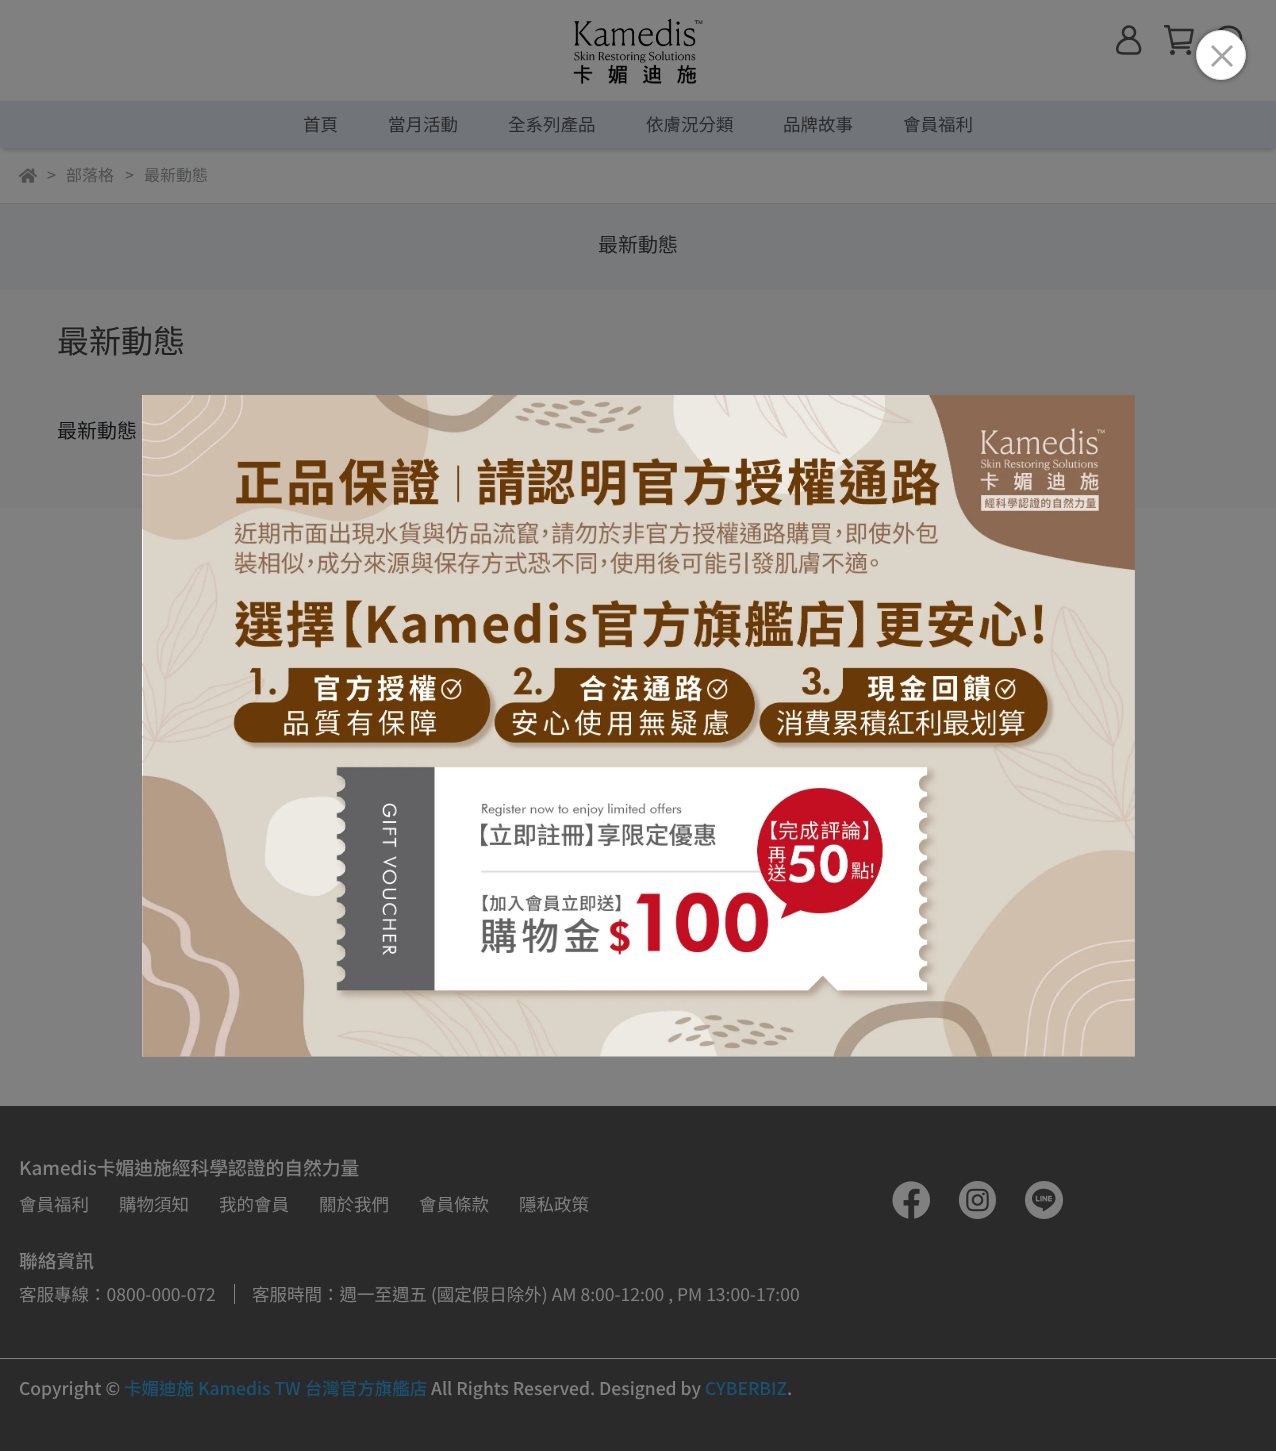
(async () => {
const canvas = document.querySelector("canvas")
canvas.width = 1276
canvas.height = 1451
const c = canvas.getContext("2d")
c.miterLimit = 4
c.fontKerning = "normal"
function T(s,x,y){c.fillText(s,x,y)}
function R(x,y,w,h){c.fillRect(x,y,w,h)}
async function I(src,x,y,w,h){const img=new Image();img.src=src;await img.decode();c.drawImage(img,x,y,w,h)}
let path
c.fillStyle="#808080"
R(0,0,1276,1451)
await I("3.png",1164,25,30,30)
path = new Path2D("M1241 39c0 16-25 16-25 0c0-16.5 25-16.5 25 0zm-2 10l5 5")
c.strokeStyle="#2b2b2b"
c.lineWidth=2.5
c.lineCap="round"
c.lineJoin="round"
c.stroke(path)
c.fillStyle="#00000080"
c.filter="blur(2.5px)"
c.beginPath()
c.roundRect(1196,30,50,50,25)
c.fill()
c.filter="none"
c.fillStyle="#fff"
c.beginPath()
c.arc(1221,55,24.5,0,7)
c.fill()
c.strokeStyle="#e2e2e2"
c.lineWidth=1
c.stroke()
c.fillStyle="#a3a3a3"
path = new Path2D("M1213 45l20 20l-2 2l-20-20z")
c.fill(path)
path = new Path2D("M1211 65l20-20l2 2l-20 20z")
c.fill(path)
c.fillStyle="#7d7d7d"
R(0,290,1276,218)
await I("1.png",142,395,993,662)
await I("2.png",573,18,130,66)
c.beginPath()
c.arc(1129,32.5,6,0,7)
c.strokeStyle="#2b2b2b"
c.lineWidth=2.5
c.stroke()
path = new Path2D("M1136 53.5h-9.5c-5.5 0-10.5 .5-9-6.5c1-3.5 3.5-6 7-7.5c14-5.5 20.5 14.5 11.5 14z")
c.lineCap="butt"
c.lineJoin="miter"
c.stroke(path)
c.fillStyle="#00000033"
c.filter="blur(2.5px)"
c.beginPath()
c.rect(3,109,1271,41)
c.fill()
c.filter="none"
c.fillStyle="#71757a"
R(0,101,1276,47)
c.font="17.5px Noto Sans TC"
c.fillStyle="#2b2b2b"
T("首頁",303,131)
T("當月活動",388,131)
T("全系列產品",508,131)
T("依膚況分類",646,131)
T("品牌故事",783,131)
T("會員福利",903,131)
c.fillStyle="#717171"
R(0,203,1276,1)
await I("4.png",18,168,19,15)
c.font="16px Noto Sans TC"
c.fillStyle="#4d4f51"
T(">",47,181)
T("部落格",66,181)
T(">",125,181)
T("最新動態",144,181)
c.fillStyle="#78797a"
R(0,204,1276,86)
c.font="20px Noto Sans TC"
c.fillStyle="#212121"
T("最新動態",598,252)
c.font="32px Noto Sans TC"
T("最新動態",57,353)
c.font="20px Noto Sans TC"
c.fillStyle="#111315"
T("最新動態",57,438)
c.fillStyle="#2a2a2a"
R(0,1106,1276,345)
c.font="500 18.75px Noto Sans TC"
c.fillStyle="#808080"
T("Kamedis卡媚迪施經科學認證的自然力量",19,1175)
c.font="17.5px Noto Sans TC"
T("會員福利",19,1211)
T("購物須知",119,1211)
T("我的會員",219,1211)
T("關於我們",319,1211)
T("會員條款",419,1211)
T("隱私政策",519,1211)
c.font="500 18.75px Noto Sans TC"
T("聯絡資訊",19,1268)
R(234,1284,1,20)
c.font="17.5px Noto Sans TC"
T("客服專線：0800-000-072",19,1301)
T("客服時間：週一至週五 (國定假日除外) AM 8:00-12:00 , PM 13:00-17:00",252,1301)
await I("5.png",892,1181,38,38)
await I("6.png",959,1181,37,38)
await I("7.png",1025,1181,38,38)
R(0,1358,1276,1)
c.font="500 17.5px Noto Sans TC"
T("Copyright ©",19,1395)
c.fillStyle="#1a5274"
T("卡媚迪施 Kamedis TW 台灣官方旗艦店",124,1395)
c.fillStyle="#808080"
T("All Rights Reserved. Designed by",431,1395)
c.fillStyle="#1a5274"
T("CYBERBIZ",705,1395)
c.fillStyle="#808080"
T(".",787,1395)
})()
